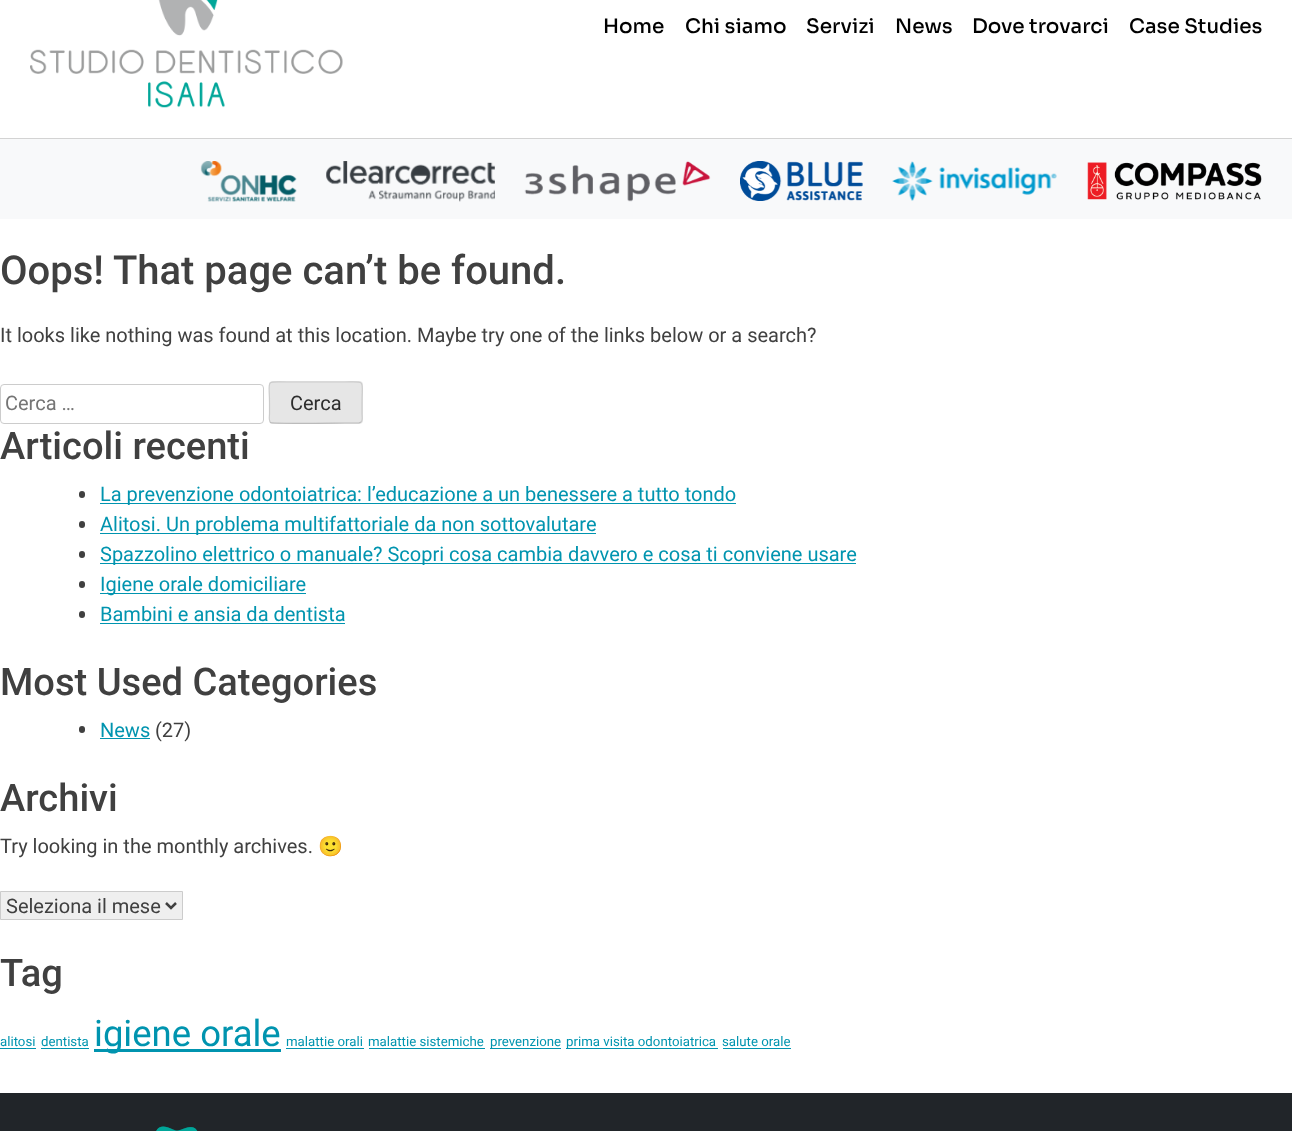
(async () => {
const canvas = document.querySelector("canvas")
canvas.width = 1292
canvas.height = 1131
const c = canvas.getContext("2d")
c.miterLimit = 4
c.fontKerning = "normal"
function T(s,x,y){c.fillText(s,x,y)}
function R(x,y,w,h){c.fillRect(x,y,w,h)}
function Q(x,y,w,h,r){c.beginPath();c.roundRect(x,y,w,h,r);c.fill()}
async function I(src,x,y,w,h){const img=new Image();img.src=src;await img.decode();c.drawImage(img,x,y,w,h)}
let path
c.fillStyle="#fff"
R(0,0,1292,1131)
await I("1.png",30,0,313,108)
c.font="500 20px Sora"
c.fillStyle="#000"
T("Home",603,33)
T("Chi siamo",685,33)
T("Servizi",806,33)
T("News",895,33)
T("Dove trovarci",972,33)
T("Case Studies",1129,33)
c.fillStyle="#f8f9fa"
R(0,139,1292,80)
c.fillStyle="#d3d3d3"
R(0,138,1292,1)
await I("2.png",200,161,97,41)
await I("3.png",326,161,169,41)
await I("4.png",524,161,187,41)
await I("5.png",740,161,123,40)
await I("6.png",892,161,165,40)
await I("7.png",1087,162,175,38)
c.font="500 40px Roboto"
c.fillStyle="#404040"
T("Oops! That page can’t be found.",0,284)
c.font="20px Roboto"
T("It looks like nothing was found at this location. Maybe try one of the links below or a search?",0,342)
c.beginPath()
c.roundRect(.5,384.5,263,39,3.5)
c.strokeStyle="#ccc"
c.stroke()
c.fillStyle="#757575"
T("Cerca …",5,410)
c.fillStyle="#e6e6e6"
Q(269,381,94,43,4)
path = new Path2D("M361 422l-2 1h-14.5c-8 0-72 1-74-.5v-.5")
c.strokeStyle="#bbb"
c.lineWidth=1.2
c.stroke(path)
path = new Path2D("M270.5 422c-2-1.5-1-6.5-1-8v-11.5c0-23.5-5-20.5 17.5-20.5h57.5c22 0 17.5-3 17.5 20.5v11.5c0 1.5 1 6.5-1 8")
c.strokeStyle="#ccc"
c.stroke(path)
c.fillStyle="#2e2e2e"
T("Cerca",290,410)
c.font="500 38.1px Roboto"
c.fillStyle="#404040"
T("Articoli recenti",0,459)
Q(79,491,6,7,3)
c.fillStyle="#0094af"
R(100,503,636,1)
c.font="20px Roboto"
T("La prevenzione odontoiatrica: l’educazione a un benessere a tutto tondo",100,501)
c.fillStyle="#404040"
Q(79,521,6,7,3)
c.fillStyle="#0094af"
R(100,533,496,1)
T("Alitosi. Un problema multifattoriale da non sottovalutare",100,531)
c.fillStyle="#404040"
Q(79,551,6,7,3)
c.fillStyle="#0094af"
R(100,563,756,1)
T("Spazzolino elettrico o manuale? Scopri cosa cambia davvero e cosa ti conviene usare",100,561)
c.fillStyle="#404040"
Q(79,581,6,7,3)
c.fillStyle="#0094af"
R(100,593,206,1)
T("Igiene orale domiciliare",100,591)
c.fillStyle="#404040"
Q(79,611,6,7,3)
c.fillStyle="#0094af"
T("Bambini e ansia da dentista",100,621)
R(100,623,245,1)
c.font="500 38.1px Roboto"
c.fillStyle="#404040"
T("Most Used Categories",0,695)
Q(79,726,6,7,3)
c.font="20px Roboto"
c.fillStyle="#0094af"
T("News",100,737)
R(100,738,50,1)
c.fillStyle="#404040"
T("(27)",155,737)
c.font="500 38.1px Roboto"
T("Archivi",0,811)
c.font="20px Roboto"
T("Try looking in the monthly archives.",0,853)
c.font="20px Noto Color Emoji"
T("🙂",318,853)
c.fillStyle="#efefef"
c.beginPath()
c.rect(.5,891.5,182,28)
c.fill()
c.lineWidth=1
c.stroke()
path = new Path2D("M166 903l5 5l5-5")
c.strokeStyle="#404040"
c.lineWidth=2.5
c.stroke(path)
c.font="20px Roboto"
c.fillStyle="#404040"
T("Seleziona il mese",6,913)
c.font="500 38.1px Roboto"
T("Tag",0,986)
c.font="13.25px Roboto"
c.fillStyle="#0094af"
T("alitosi",0,1046)
R(0,1048,36,1)
T("dentista",41,1046)
R(41,1048,48,1)
R(94,1049,187,3)
c.font="36.5px Roboto"
T("igiene orale",94,1046)
c.font="13.25px Roboto"
T("malattie orali",286,1046)
R(286,1048,78,1)
T("malattie sistemiche",368,1046)
R(369,1048,116,1)
R(490,1048,71,1)
T("prevenzione",490,1046)
R(566,1048,152,1)
T("prima visita odontoiatrica",566,1046)
T("salute orale",722,1046)
R(723,1048,68,1)
c.fillStyle="#212529"
R(0,1093,1292,38)
await I("8.png",156,1126,42,5)
})()
